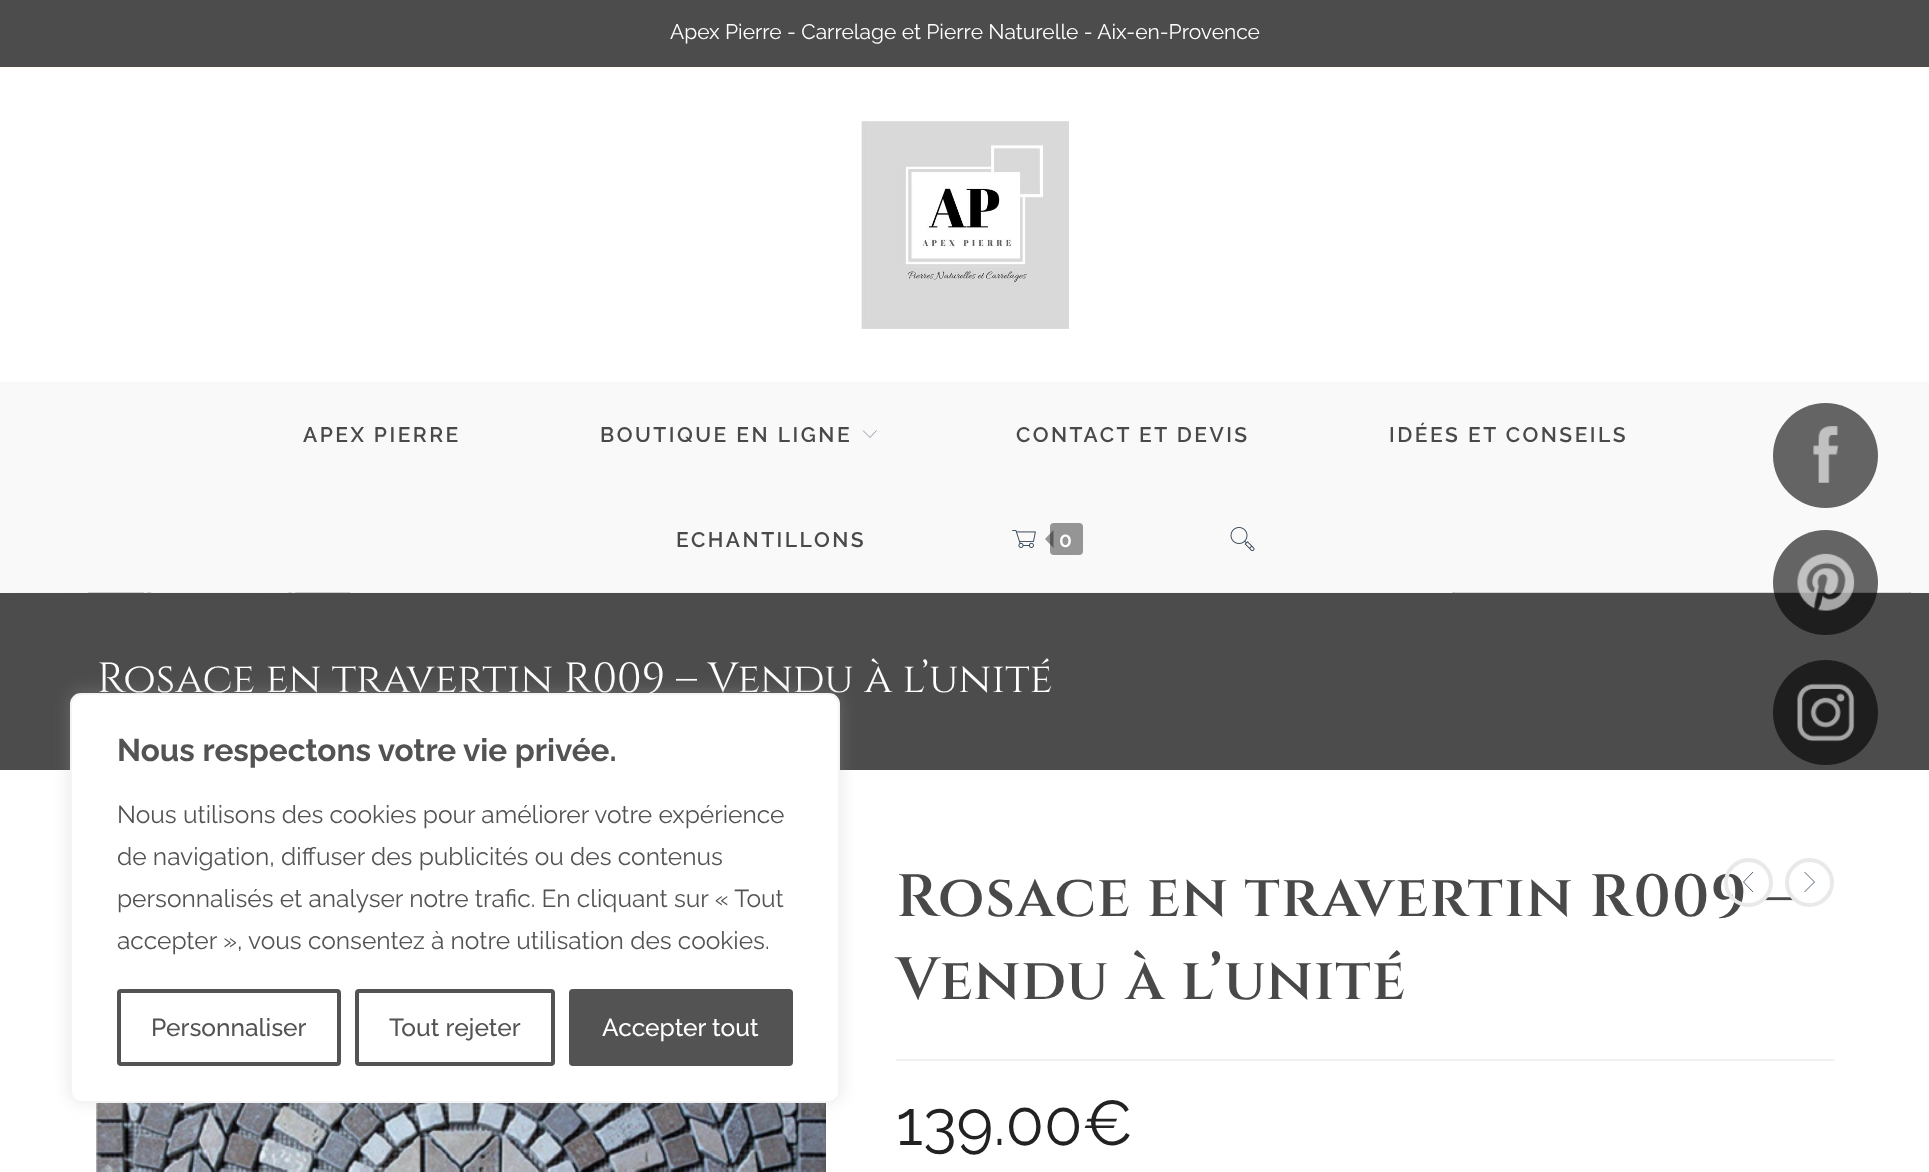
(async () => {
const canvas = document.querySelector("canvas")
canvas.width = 1929
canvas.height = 1172
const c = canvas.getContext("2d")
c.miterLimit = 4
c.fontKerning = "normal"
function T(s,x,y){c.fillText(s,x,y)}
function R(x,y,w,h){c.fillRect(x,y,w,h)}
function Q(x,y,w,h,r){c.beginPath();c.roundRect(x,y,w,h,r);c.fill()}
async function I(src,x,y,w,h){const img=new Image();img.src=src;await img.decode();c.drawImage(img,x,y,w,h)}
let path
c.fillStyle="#fff"
R(0,0,1929,1172)
c.fillStyle="#4c4c4c"
R(0,0,1929,67)
c.fillStyle="#fffbf7"
R(0,67,1929,2)
c.font="21px Raleway"
c.fillStyle="#fff"
T("Apex Pierre - Carrelage et Pierre Naturelle - Aix-en-Provence",670,39)
await I("1.png",861,121,208,208)
await I("4.png",88,592,263,1)
await I("5.png",1452,592,459,1)
c.fillStyle="#0000001a"
c.filter="blur(35px)"
c.beginPath()
c.rect(0,593,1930,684)
c.fill()
c.filter="none"
c.fillStyle="#f9f9f9"
R(0,382,1929,210)
c.letterSpacing="2.5px"
c.font="600 21px Raleway"
c.fillStyle="#494949"
T("APEX PIERRE",303,442)
T("BOUTIQUE EN LIGNE",600,442)
path = new Path2D("M876.5 430.5l-6.5 7l-7-7")
c.strokeStyle="#2d3e50"
c.lineWidth=0.5
c.stroke(path)
T("CONTACT ET DEVIS",1016,442)
T("IDÉES ET CONSEILS",1389,442)
T("ECHANTILLONS",676,547)
await I("2.png",1012,530,24,18)
c.fillStyle="#959595"
Q(1050,523,33,32,4)
c.fillStyle="#00000066"
path = new Path2D("M1053.5 530v18l-8.5-9z")
c.fill(path)
c.fillStyle="#fff"
T("0",1059,547)
await I("3.png",1230,527,25,24)
R(0,770,1929,402)
c.fillStyle="#4c4c4c"
R(0,593,1929,177)
c.letterSpacing="0px"
c.font="42px Cinzel"
c.fillStyle="#fff"
T("Rosace en travertin R009 – Vendu à l’unité",97,692)
c.letterSpacing="1.05px"
c.font="600 59.5px Cinzel"
c.fillStyle="#494949"
T("Rosace en travertin R009 –",896,916)
c.beginPath()
c.arc(1748.5,882.5,22.5,0,7)
c.strokeStyle="#e9e9e9"
c.lineWidth=4
c.stroke()
path = new Path2D("M1753 892l-9.5-10l9.5-10")
c.strokeStyle="#2d3e50"
c.lineWidth=0.8
c.stroke(path)
c.beginPath()
c.arc(1809.5,882.5,22.5,0,7)
c.strokeStyle="#e9e9e9"
c.lineWidth=4
c.stroke()
path = new Path2D("M1804.5 872l10 10l-10 10")
c.strokeStyle="#2d3e50"
c.lineWidth=0.8
c.stroke(path)
await I("6.png",96,1103,730,69)
c.fillStyle="#f1f1f1"
R(896,1059,938,2)
c.fillStyle="#494949"
T("Vendu à l’unité",896,999)
c.letterSpacing="0px"
c.font="63px Raleway"
c.fillStyle="#222"
T("139.00€",896,1145)
c.fillStyle="#646464"
c.beginPath()
c.arc(1825.5,455.5,52.5,0,7)
c.fill()
await I("7.png",1813,426,26,57)
c.fillStyle="#00000099"
c.beginPath()
c.arc(1825.5,582.5,52.5,0,7)
c.fill()
await I("8.png",1797,553,58,58)
c.fillStyle="#1e1e1e"
c.beginPath()
c.arc(1825.5,712.5,52.5,0,7)
c.fill()
await I("9.png",1797,683,58,59)
c.fillStyle="#acabab4d"
c.filter="blur(9px)"
c.beginPath()
c.roundRect(70,691,770,410,11)
c.fill()
c.filter="none"
c.fillStyle="#fff"
c.beginPath()
c.roundRect(71,694,768,408,10)
c.fill()
c.strokeStyle="#f4f4f4"
c.lineWidth=2
c.stroke()
c.font="bold 31.5px Raleway"
c.fillStyle="#545353"
T("Nous respectons votre vie privée.",117,761)
c.font="24.5px Raleway"
T("Nous utilisons des cookies pour améliorer votre expérience",117,823)
T("de navigation, diffuser des publicités ou des contenus",117,865)
T("personnalisés et analyser notre trafic. En cliquant sur « Tout",117,907)
T("accepter », vous consentez à notre utilisation des cookies.",117,949)
c.beginPath()
c.roundRect(119,991,220,73,2)
c.strokeStyle="#545353"
c.lineWidth=4
c.stroke()
c.font="500 24.5px Raleway"
T("Personnaliser",151,1036)
c.beginPath()
c.roundRect(357,991,196,73,2)
c.stroke()
T("Tout rejeter",389,1036)
c.beginPath()
c.roundRect(571,991,220,73,2)
c.fill()
c.stroke()
c.fillStyle="#fff"
T("Accepter tout",602,1036)
})()
